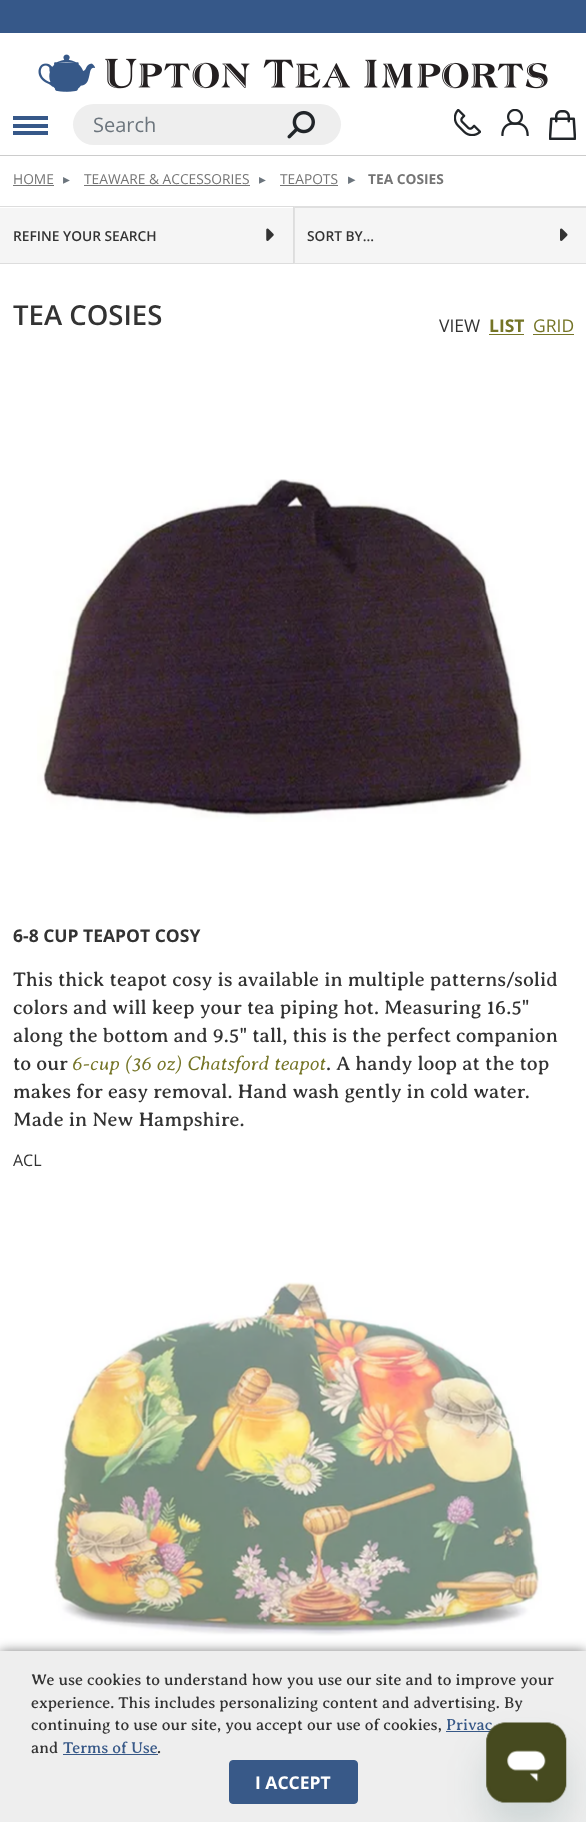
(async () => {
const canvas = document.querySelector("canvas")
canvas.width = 586
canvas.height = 1822
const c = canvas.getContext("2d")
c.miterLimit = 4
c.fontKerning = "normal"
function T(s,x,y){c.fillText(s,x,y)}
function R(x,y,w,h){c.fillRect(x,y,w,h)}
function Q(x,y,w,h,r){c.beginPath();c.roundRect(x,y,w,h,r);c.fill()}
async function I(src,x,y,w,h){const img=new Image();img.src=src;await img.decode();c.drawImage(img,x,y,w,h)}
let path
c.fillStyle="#fff"
R(0,0,586,1822)
c.fillStyle="#ccc"
R(0,155,586,1)
c.fillStyle="#365889"
R(0,0,586,33)
await I("1.png",38,54,510,38)
R(13,124,35,4)
R(13,116,35,4)
R(13,131,35,4)
c.fillStyle="#eee"
Q(73,104,268,41,20.5)
c.font="20px Open Sans"
c.fillStyle="#6c757d"
T("Search",93,132)
await I("2.png",287,110,28,29)
await I("3.png",454,109,27,27)
await I("4.png",501,109,28,27)
await I("5.png",549,110,27,30)
c.font="13.75px Open Sans"
c.fillStyle="#757575"
T("HOME",13,184)
R(13,185,41,1)
c.font="13.75px DejaVu Sans"
c.fillStyle="#6c757d"
T("▸",63,184)
c.font="13.75px Open Sans"
c.fillStyle="#757575"
T("TEAWARE & ACCESSORIES",84,184)
R(84,185,166,1)
c.font="13.75px DejaVu Sans"
c.fillStyle="#6c757d"
T("▸",259,184)
c.font="13.75px Open Sans"
c.fillStyle="#757575"
T("TEAPOTS",280,184)
R(280,185,58,1)
c.font="bold 13.75px DejaVu Sans"
c.fillStyle="#6c757d"
T("▸",348,184)
c.font="bold 13.75px Open Sans"
c.fillStyle="#757575"
T("TEA COSIES",368,184)
c.fillStyle="#ddd"
R(0,206,294,1)
R(293,206,1,58)
R(0,263,294,1)
c.fillStyle="#f5f5f5"
R(0,208,293,55)
c.font="600 13.75px Open Sans"
c.fillStyle="#333"
T("REFINE YOUR SEARCH",13,241)
await I("6.png",266,228,8,13)
c.fillStyle="#dfdfdf"
path = new Path2D("M294 206h292v2h-291z")
c.fill(path)
path = new Path2D("M586 264h-292l1-2h291z")
c.fill(path)
c.fillStyle="#0000001f"
path = new Path2D("M294 264v-58l1 2v54z")
c.fill(path)
c.fillStyle="#f5f5f5"
R(295,208,291,55)
c.fillStyle="#333"
T("SORT BY...",307,241)
await I("7.png",560,228,8,13)
c.font="600 27.5px Open Sans"
T("TEA COSIES",13,325)
c.font="17.5px Open Sans"
T("VIEW",439,332)
c.font="bold 17.5px Open Sans"
c.fillStyle="#757527"
T("LIST",489,332)
R(489,334,35,1)
c.font="17.5px Open Sans"
T("GRID",533,332)
R(533,334,41,1)
await I("8.png",37,479,494,343)
c.font="bold 17.5px Open Sans"
c.fillStyle="#333"
T("6-8 CUP TEAPOT COSY",13,942)
c.font="20px Averia Serif Libre"
T("This thick teapot cosy is available in multiple patterns/solid",13,986)
T("colors and will keep your tea piping hot. Measuring 16.5\"",13,1014)
T("along the bottom and 9.5\" tall, this is the perfect companion",13,1042)
T("to our",13,1070)
c.font="italic 300 20px Averia Serif Libre"
c.fillStyle="#757527"
T("6-cup (36 oz) Chatsford teapot",72,1070)
c.font="20px Averia Serif Libre"
c.fillStyle="#333"
T(". A handy loop at the top",326,1070)
T("makes for easy removal. Hand wash gently in cold water.",13,1098)
T("Made in New Hampshire.",13,1126)
c.font="16px Open Sans"
T("ACL",13,1166)
await I("9.png",54,1282,488,354)
c.fillStyle="#00000080"
c.filter="blur(6px)"
c.beginPath()
c.rect(0,1651,586,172)
c.fill()
c.filter="none"
c.fillStyle="#eee"
R(0,1651,586,171)
c.font="16px Averia Serif Libre"
c.fillStyle="#333"
T("We use cookies to understand how you use our site and to improve your",31,1685)
T("experience. This includes personalizing content and advertising. By",31,1708)
T("continuing to use our site, you accept our use of cookies,",31,1730)
c.fillStyle="#385988"
T("Privac",446,1730)
R(446,1731,45,1)
c.fillStyle="#333"
T("and",31,1753)
c.fillStyle="#385988"
T("Terms of Use",63,1753)
R(63,1754,95,1)
c.fillStyle="#333"
T(".",157,1753)
c.fillStyle="#385988"
c.beginPath()
c.roundRect(229.5,1760.5,128,43,3.5)
c.fill()
c.strokeStyle="#385988"
c.stroke()
c.font="bold 17.5px Open Sans"
c.fillStyle="#fff"
T("I ACCEPT",255,1789)
c.fillStyle="#17494d26"
c.filter="blur(19px)"
c.beginPath()
c.roundRect(486,1748,80,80,20)
c.fill()
c.filter="none"
await I("10.png",486,1722,81,81)
})()
